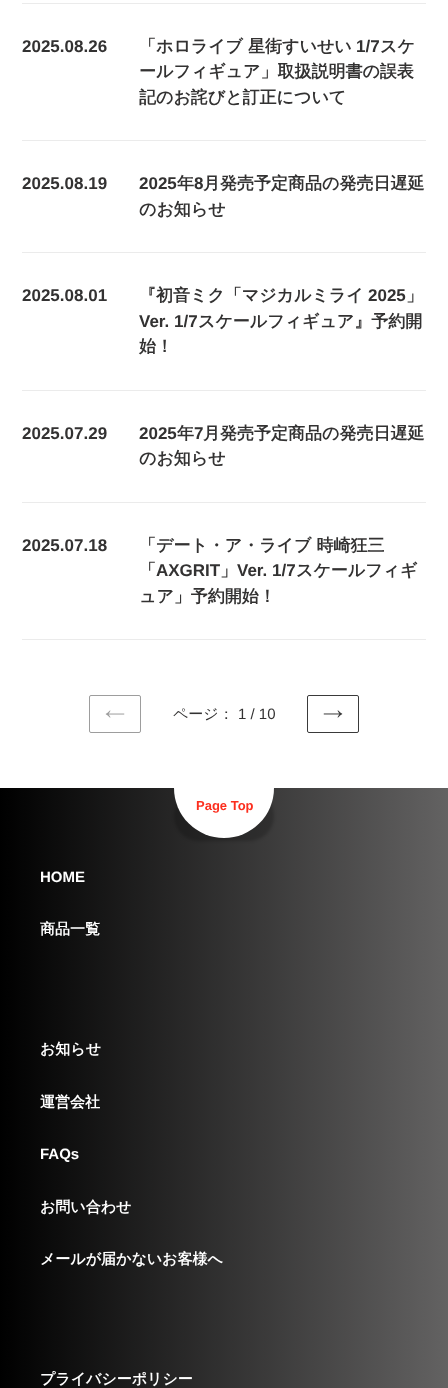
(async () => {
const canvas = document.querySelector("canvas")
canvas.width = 448
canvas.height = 1388
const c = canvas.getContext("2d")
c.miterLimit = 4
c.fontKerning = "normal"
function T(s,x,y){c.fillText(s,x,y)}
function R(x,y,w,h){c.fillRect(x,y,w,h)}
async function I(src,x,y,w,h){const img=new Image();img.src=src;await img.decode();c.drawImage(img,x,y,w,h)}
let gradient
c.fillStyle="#fff"
R(0,0,448,1388)
c.fillStyle="#ebebeb"
R(22,3,404,1)
R(22,140,404,1)
c.font="bold 17px Liberation Sans"
c.fillStyle="#333232"
T("2025.08.26",22,52)
c.font="bold 17px WenQuanYi Zen Hei"
T("「ホロライブ 星街すいせい",139,52)
c.font="bold 17px Liberation Sans"
T("1/7",356,52)
c.font="bold 17px WenQuanYi Zen Hei"
T("スケ",380,52)
T("ールフィギュア」取扱説明書の誤表",139,77)
T("記のお詫びと訂正について",139,103)
c.fillStyle="#ebebeb"
R(22,252,404,1)
c.font="bold 17px Liberation Sans"
c.fillStyle="#333232"
T("2025.08.19",22,189)
T("2025",139,189)
c.font="bold 17px WenQuanYi Zen Hei"
T("年",177,189)
c.font="bold 17px Liberation Sans"
T("8",194,189)
c.font="bold 17px WenQuanYi Zen Hei"
T("月発売予定商品の発売日遅延",203,189)
T("のお知らせ",139,215)
c.fillStyle="#ebebeb"
R(22,390,404,1)
c.font="bold 17px Liberation Sans"
c.fillStyle="#333232"
T("2025.08.01",22,301)
c.font="bold 17px WenQuanYi Zen Hei"
T("『初音ミク「マジカルミライ",139,301)
c.font="bold 17px Liberation Sans"
T("2025",368,301)
c.font="bold 17px WenQuanYi Zen Hei"
T("」",406,301)
c.font="bold 17px Liberation Sans"
T("Ver. 1/7",139,327)
c.font="bold 17px WenQuanYi Zen Hei"
T("スケールフィギュア』予約開",198,327)
T("始！",139,352)
c.fillStyle="#ebebeb"
R(22,502,404,1)
c.font="bold 17px Liberation Sans"
c.fillStyle="#333232"
T("2025.07.29",22,439)
T("2025",139,439)
c.font="bold 17px WenQuanYi Zen Hei"
T("年",177,439)
c.font="bold 17px Liberation Sans"
T("7",194,439)
c.font="bold 17px WenQuanYi Zen Hei"
T("月発売予定商品の発売日遅延",203,439)
T("のお知らせ",139,464)
c.fillStyle="#ebebeb"
R(22,639,404,1)
c.font="bold 17px Liberation Sans"
c.fillStyle="#333232"
T("2025.07.18",22,551)
c.font="bold 17px WenQuanYi Zen Hei"
T("「デート・ア・ライブ 時崎狂三",139,551)
T("「",139,576)
c.font="bold 17px Liberation Sans"
T("AXGRIT",156,576)
c.font="bold 17px WenQuanYi Zen Hei"
T("」",220,576)
c.font="bold 17px Liberation Sans"
T("Ver. 1/7",237,576)
c.font="bold 17px WenQuanYi Zen Hei"
T("スケールフィギ",296,576)
T("ュア」予約開始！",139,602)
c.beginPath()
c.roundRect(89.5,695.5,51,37,1.5)
c.strokeStyle="#9d9d9d"
c.stroke()
await I("1.png",105,710,20,8)
c.font="500 15px WenQuanYi Zen Hei"
T("ページ：",173,719)
c.font="15px Liberation Sans"
T("1 / 10",238,719)
c.beginPath()
c.roundRect(307.5,695.5,51,37,1.5)
c.strokeStyle="#3a3a3a"
c.stroke()
await I("2.png",323,710,20,8)
gradient = c.createLinearGradient(0,1305,448,1305)
gradient.addColorStop(0,"#000")
gradient.addColorStop(1,"#636262")
c.fillStyle = gradient
R(0,788,448,600)
c.fillStyle="#00000033"
c.filter="blur(1.5px)"
c.beginPath()
c.roundRect(174,791,100,50,50)
c.fill()
c.filter="none"
c.fillStyle="#fff"
c.beginPath()
c.roundRect(174,788,100,50,[0,0,50,50])
c.fill()
c.font="bold 13px Liberation Sans"
c.fillStyle="#fc2e1e"
T("Page Top",196,810)
c.font="bold 15px Liberation Sans"
c.fillStyle="#fff"
T("HOME",40,882)
c.font="bold 15px WenQuanYi Zen Hei"
T("商品一覧",40,934)
T("お知らせ",40,1054)
T("運営会社",40,1107)
c.font="bold 15px Liberation Sans"
T("FAQs",40,1159)
c.font="bold 15px WenQuanYi Zen Hei"
T("お問い合わせ",40,1212)
T("メールが届かないお客様へ",40,1264)
T("プライバシーポリシー",40,1384)
})()
